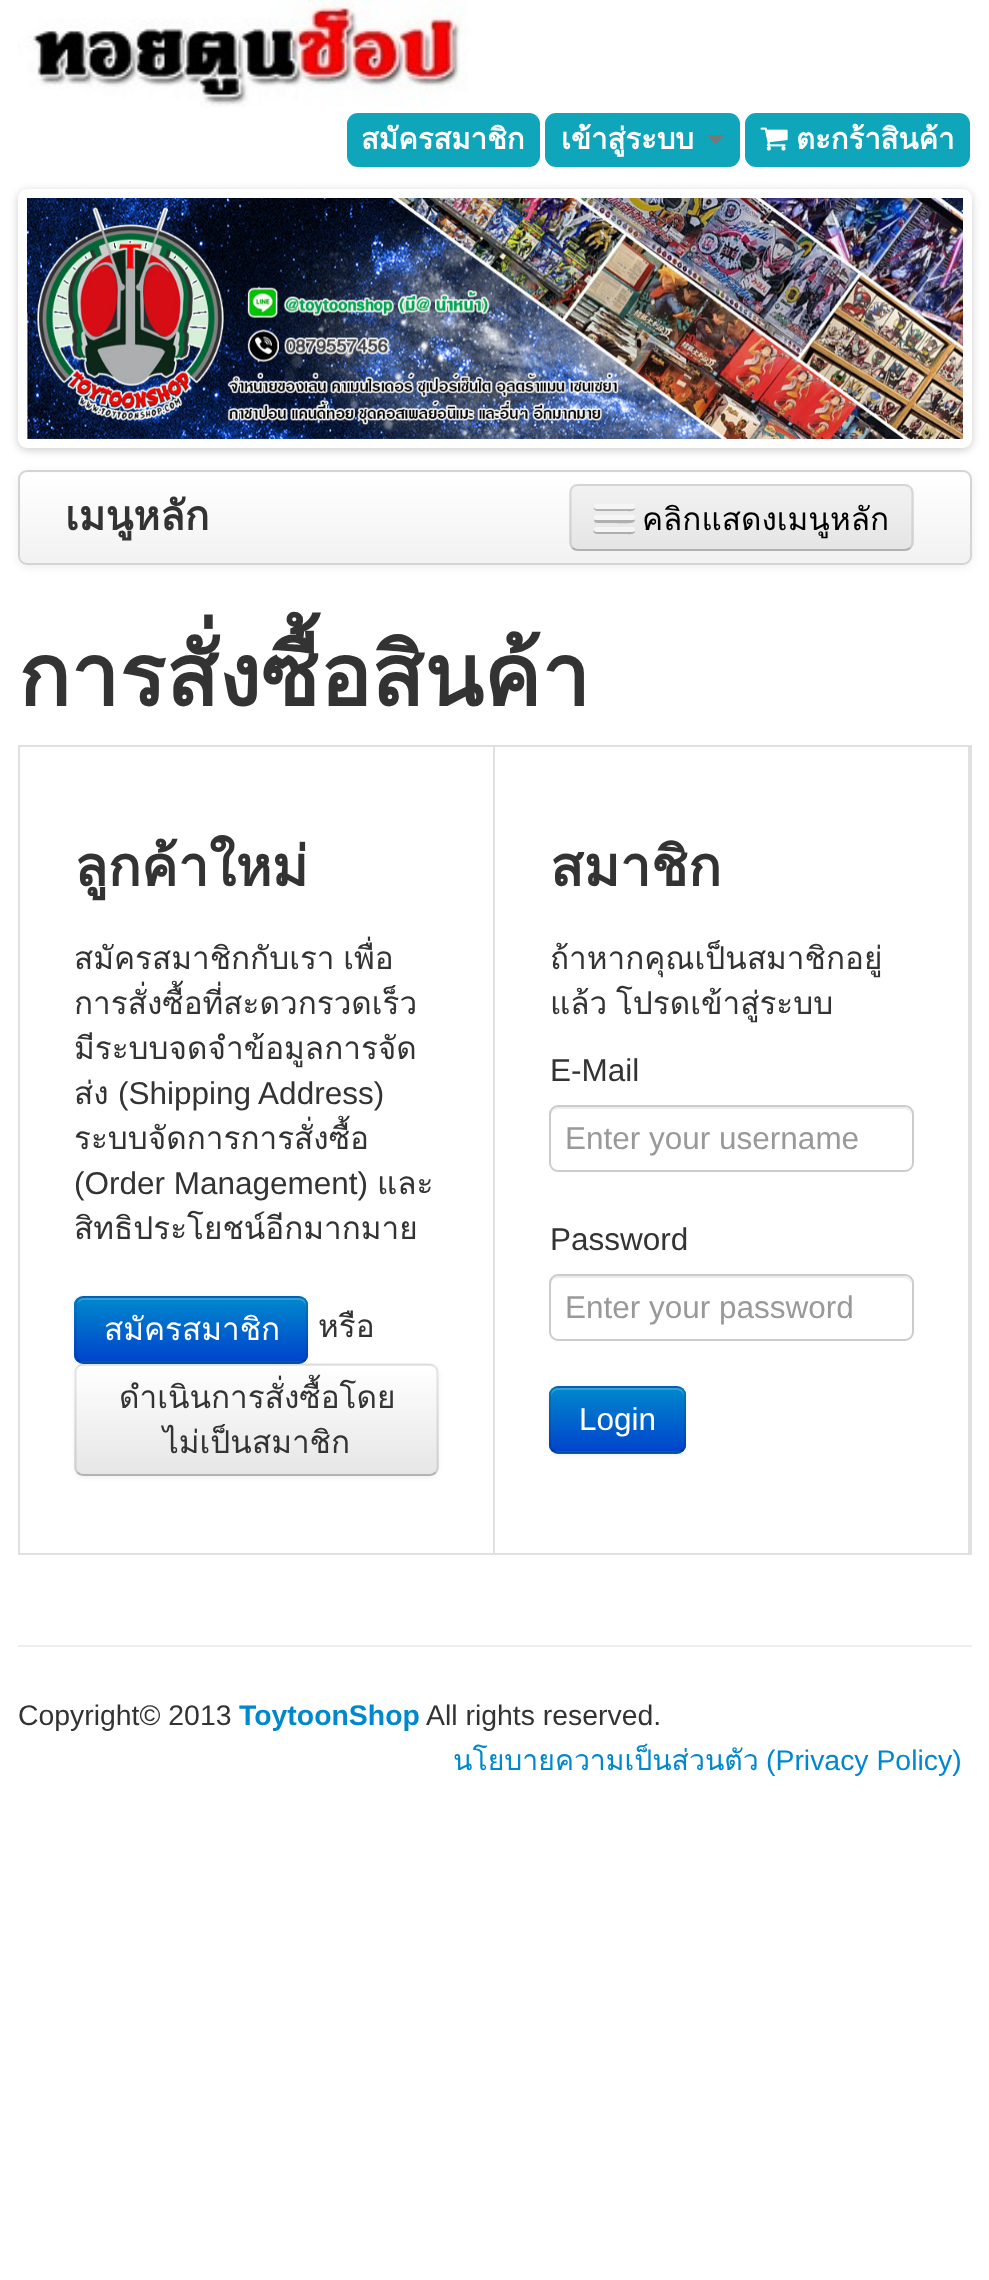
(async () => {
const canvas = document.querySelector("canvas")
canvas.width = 989
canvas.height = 2280
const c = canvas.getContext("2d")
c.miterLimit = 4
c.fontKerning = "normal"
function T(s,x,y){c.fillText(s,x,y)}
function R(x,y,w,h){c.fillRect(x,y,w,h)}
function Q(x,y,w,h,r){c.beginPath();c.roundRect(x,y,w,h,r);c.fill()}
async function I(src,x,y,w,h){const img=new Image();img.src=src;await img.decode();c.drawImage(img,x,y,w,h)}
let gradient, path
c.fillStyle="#fff"
R(0,0,989,2280)
await I("1.png",18,0,450,108)
c.fillStyle="#0fa6bc"
Q(347,113,193,54,11)
c.font="bold 29.25px Loma"
c.fillStyle="#fff"
T("สมัครสมาชิก",361,149)
c.fillStyle="#0fa6bc"
Q(545,113,195,54,11)
c.fillStyle="#fff"
T("เข้าสู่ระบบ",561,149)
c.fillStyle="#777"
path = new Path2D("M706.5 135h18l-9 9z")
c.fill(path)
c.fillStyle="#0fa6bc"
Q(745,113,225,54,11)
await I("2.png",760,127,28,24)
c.fillStyle="#fff"
T("ตะกร้าสินค้า",796,149)
c.fillStyle="#00000033"
c.filter="blur(4.5px)"
c.beginPath()
c.roundRect(18,191,954,259,9)
c.fill()
c.filter="none"
c.beginPath()
c.roundRect(22.5,193.5,945,250,4.5)
c.strokeStyle="#fff"
c.lineWidth=9
c.stroke()
await I("3.png",27,198,936,241)
c.fillStyle="#00000012"
c.filter="blur(4.5px)"
c.beginPath()
c.roundRect(18,473,954,94,9)
c.fill()
c.filter="none"
c.fillStyle="#fafafa"
Q(18,470,954,95,9)
c.save()
c.beginPath()
c.roundRect(18,470,954,95,9)
c.clip()
gradient = c.createLinearGradient(495,472,495,563)
gradient.addColorStop(0,"#fff")
gradient.addColorStop(1,"#f2f2f2")
c.fillStyle = gradient
R(18,473,954,90)
c.restore()
c.beginPath()
c.roundRect(19,471,952,93,8)
c.strokeStyle="#d4d4d4"
c.lineWidth=2
c.stroke()
c.font="bold 40.5px Loma"
c.fillStyle="#333"
T("เมนูหลัก",65,530)
c.fillStyle="#ededed"
Q(569,484,345,67,9)
c.save()
c.beginPath()
c.roundRect(569,484,345,67,9)
c.clip()
gradient = c.createLinearGradient(741,486,741,549)
gradient.addColorStop(0,"#f2f2f2")
gradient.addColorStop(1,"#e5e5e5")
c.fillStyle = gradient
R(569,486,345,63)
c.restore()
path = new Path2D("M910 548c-1.5 1.5-3.5 2-5.5 2h-326.5c-2 0-4-.5-5.5-2")
c.strokeStyle="#00000040"
c.lineWidth=2.2
c.stroke(path)
path = new Path2D("M572.5 548c-1.5-1.5-2-3.5-2-6v-49c0-2.5 .5-4.5 2-6c1.5-1.5 3.5-2 5.5-2h326.5c2 0 4 .5 5.5 2c1.5 1.5 2.5 3.5 2.5 6v49c0 2.5-1 4.5-2.5 6")
c.strokeStyle="#0000001a"
c.stroke(path)
c.fillStyle="#b2b2b2"
path = new Path2D("M594 507c-2 5 8 4 8 4h24c2 0 8 1 9-2l-1-2c0 1-1 1-2 1h-36c-1 0-1 0-2-1z")
c.fill(path)
c.fillStyle="#f5f5f5"
Q(594,504,41,5,2.5)
c.fillStyle="#b0b0b0"
path = new Path2D("M595 519c-4 5 7 4 7 4h12c4 0 18 1 20-1c1-1 1-2 0-3l-1 1h-37z")
c.fill(path)
c.fillStyle="#f5f5f5"
Q(594,515,41,5,2.5)
c.fillStyle="#aeaeae"
path = new Path2D("M594 530c-3 5 8 4 8 4h24c2 0 8 1 9-2l-1-2l-1 1h-37z")
c.fill(path)
c.fillStyle="#f5f5f5"
Q(594,527,41,5,2.5)
c.font="31.5px Loma"
c.fillStyle="#000"
T("คลิกแสดงเมนูหลัก",642,530)
c.font="bold 86.5px Loma"
c.fillStyle="#333"
T("การสั่งซื้อสินค้า",18,706)
c.strokeStyle="#e0e0e0"
c.lineWidth=2
c.strokeRect(19,746,952,808)
c.fillStyle="#e0e0e0"
R(493,745,2,808)
c.font="bold 55px Loma"
c.fillStyle="#333"
T("ลูกค้าใหม่",74,886)
c.wordSpacing="-2px"
c.font="31.5px Loma"
T("สมัครสมาชิกกับเรา เพื่อ",74,969)
c.wordSpacing="0px"
T("การสั่งซื้อที่สะดวกรวดเร็ว",74,1014)
T("มีระบบจดจำข้อมูลการจัด",74,1059)
T("ส่ง",74,1104)
c.font="31.5px Liberation Sans"
T("(Shipping Address)",118,1104)
c.font="31.5px Loma"
T("ระบบจัดการการสั่งซื้อ",74,1149)
c.font="31.5px Liberation Sans"
T("(Order Management)",74,1194)
c.font="31.5px Loma"
T("และ",377,1194)
T("สิทธิประโยชน์อีกมากมาย",74,1239)
c.fillStyle="#0000000d"
c.filter="blur(2px)"
c.beginPath()
c.roundRect(74,1298,234,68,9)
c.fill()
c.filter="none"
c.fillStyle="#006dcc"
Q(74,1296,234,68,9)
c.save()
c.beginPath()
c.roundRect(74,1296,234,68,9)
c.clip()
gradient = c.createLinearGradient(191,1298,191,1361)
gradient.addColorStop(0,"#08c")
gradient.addColorStop(1,"#04c")
c.fillStyle = gradient
R(74,1298,234,63)
c.restore()
c.fillStyle="#ffffff33"
path = new Path2D("M83 1300h216c4 0 7 4 7 7v-2c0-4-3-7-7-7h-215c-4 0-6 3-7 6c1-2 4-4 6-4z")
c.fill(path)
path = new Path2D("M305 1360c-1.5 1.5-3.5 2.5-6 2.5h-216c-2 0-4-1-5.5-2.5")
c.strokeStyle="#00000040"
c.lineWidth=2.2
c.stroke(path)
path = new Path2D("M77.5 1360c-1.5-1.5-2-3.5-2-5.5v-49.5c0-2 .5-4 2-5.5c1.5-1.5 3.5-2.5 5.5-2.5h216c2.5 0 4.5 1 6 2.5c1.5 1.5 2 3.5 2 5.5v49.5c0 2-.5 4-2 5.5")
c.strokeStyle="#0000001a"
c.stroke(path)
c.fillStyle="#fff"
T("สมัครสมาชิก",104,1340)
c.fillStyle="#333"
T("หรือ",318,1337)
c.fillStyle="#0000000d"
c.filter="blur(2px)"
c.beginPath()
c.roundRect(74,1366,365,112,9)
c.fill()
c.filter="none"
c.fillStyle="#f5f5f5"
Q(74,1364,365,112,9)
c.save()
c.beginPath()
c.roundRect(74,1364,365,112,9)
c.clip()
gradient = c.createLinearGradient(257,1366,257,1474)
gradient.addColorStop(0,"#fff")
gradient.addColorStop(1,"#e6e6e6")
c.fillStyle = gradient
R(74,1366,365,108)
c.restore()
c.fillStyle="#ffffff33"
path = new Path2D("M83 1368h347c3 0 6 3 6 7v96c1-1 1-3 1-4v-94c0-4-3-7-7-7h-346c-3 0-6 2-7 5c2-2 4-3 6-3z")
c.fill(path)
path = new Path2D("M435.5 1472.5c-1.5 1.5-3.5 2.5-5.5 2.5h-347c-2 0-4-1-5.5-2.5")
c.strokeStyle="#b3b3b3"
c.stroke(path)
path = new Path2D("M77.5 1472.5c-1.5-1.5-2-3.5-2-5.5v-94.5c0-2 .5-4 2-5.5c1.5-1.5 3.5-2.5 5.5-2.5h347c2 0 4 1 5.5 2.5c1.5 1.5 2 3.5 2 5.5v94.5c0 2-.5 4-2 5.5")
c.strokeStyle="#0000001a"
c.stroke(path)
c.fillStyle="#333"
T("ดำเนินการสั่งซื้อโดย",119,1408)
T("ไม่เป็นสมาชิก",163,1453)
c.fillStyle="#e0e0e0"
R(968,745,2,808)
c.font="bold 55px Loma"
c.fillStyle="#333"
T("สมาชิก",550,886)
c.font="31.5px Loma"
T("ถ้าหากคุณเป็นสมาชิกอยู่",550,969)
c.wordSpacing="-2px"
T("แล้ว โปรดเข้าสู่ระบบ",550,1014)
c.wordSpacing="0px"
c.font="31.5px Liberation Sans"
T("E-Mail",550,1081)
c.fillStyle="#ececec"
path = new Path2D("M558 1109h346c4 0 7 3 7 7v-2c0-4-3-7-7-7h-346c-4 0-7 3-7 7v2c0-4 3-7 7-7z")
c.fill(path)
c.beginPath()
c.roundRect(550,1106,363,65,8)
c.strokeStyle="#ccc"
c.lineWidth=2
c.stroke()
c.fillStyle="#999"
T("Enter your username",565,1149)
c.fillStyle="#333"
T("Password",550,1250)
c.fillStyle="#ececec"
path = new Path2D("M558 1278h346c4 0 7 3 7 7v-2c0-4-3-7-7-7h-346c-4 0-7 3-7 7v2c0-4 3-7 7-7z")
c.fill(path)
c.beginPath()
c.roundRect(550,1275,363,65,8)
c.stroke()
c.fillStyle="#999"
T("Enter your password",565,1318)
c.fillStyle="#0000000d"
c.filter="blur(2px)"
c.beginPath()
c.roundRect(549,1388,137,68,9)
c.fill()
c.filter="none"
c.fillStyle="#006dcc"
Q(549,1386,137,68,9)
c.save()
c.beginPath()
c.roundRect(549,1386,137,68,9)
c.clip()
gradient = c.createLinearGradient(618,1388,618,1451)
gradient.addColorStop(0,"#08c")
gradient.addColorStop(1,"#04c")
c.fillStyle = gradient
R(549,1388,137,63)
c.restore()
c.fillStyle="#ffffff33"
path = new Path2D("M558 1390h119c4 0 7 4 7 7v-2c0-4-3-7-7-7h-119c-4 0-7 3-7 7v2c0-3 3-7 7-7z")
c.fill(path)
path = new Path2D("M683 1450c-1.5 1.5-3.5 2.5-6 2.5h-119c-2 0-4-1-5.5-2.5")
c.strokeStyle="#00000040"
c.lineWidth=2.2
c.stroke(path)
path = new Path2D("M552.5 1450c-1.5-1.5-2.5-3.5-2.5-5.5v-49.5c0-2 1-4 2.5-5.5c1.5-1.5 3.5-2.5 5.5-2.5h119c2.5 0 4.5 1 6 2.5c1.5 1.5 2 3.5 2 5.5v49.5c0 2-.5 4-2 5.5")
c.strokeStyle="#0000001a"
c.stroke(path)
c.fillStyle="#fff"
T("Login",579,1430)
c.fillStyle="#eee"
R(18,1645,954,2)
c.font="28.4px Liberation Sans"
c.fillStyle="#333"
T("Copyright© 2013",18,1725)
c.font="bold 28.4px Liberation Sans"
c.fillStyle="#08c"
T("ToytoonShop",239,1725)
c.font="28.4px Liberation Sans"
c.fillStyle="#333"
T("All rights reserved.",426,1725)
c.font="28.4px Loma"
c.fillStyle="#08c"
T("นโยบายความเป็นส่วนตัว",453,1770)
c.font="28.4px Liberation Sans"
T("(Privacy Policy)",766,1770)
})()
